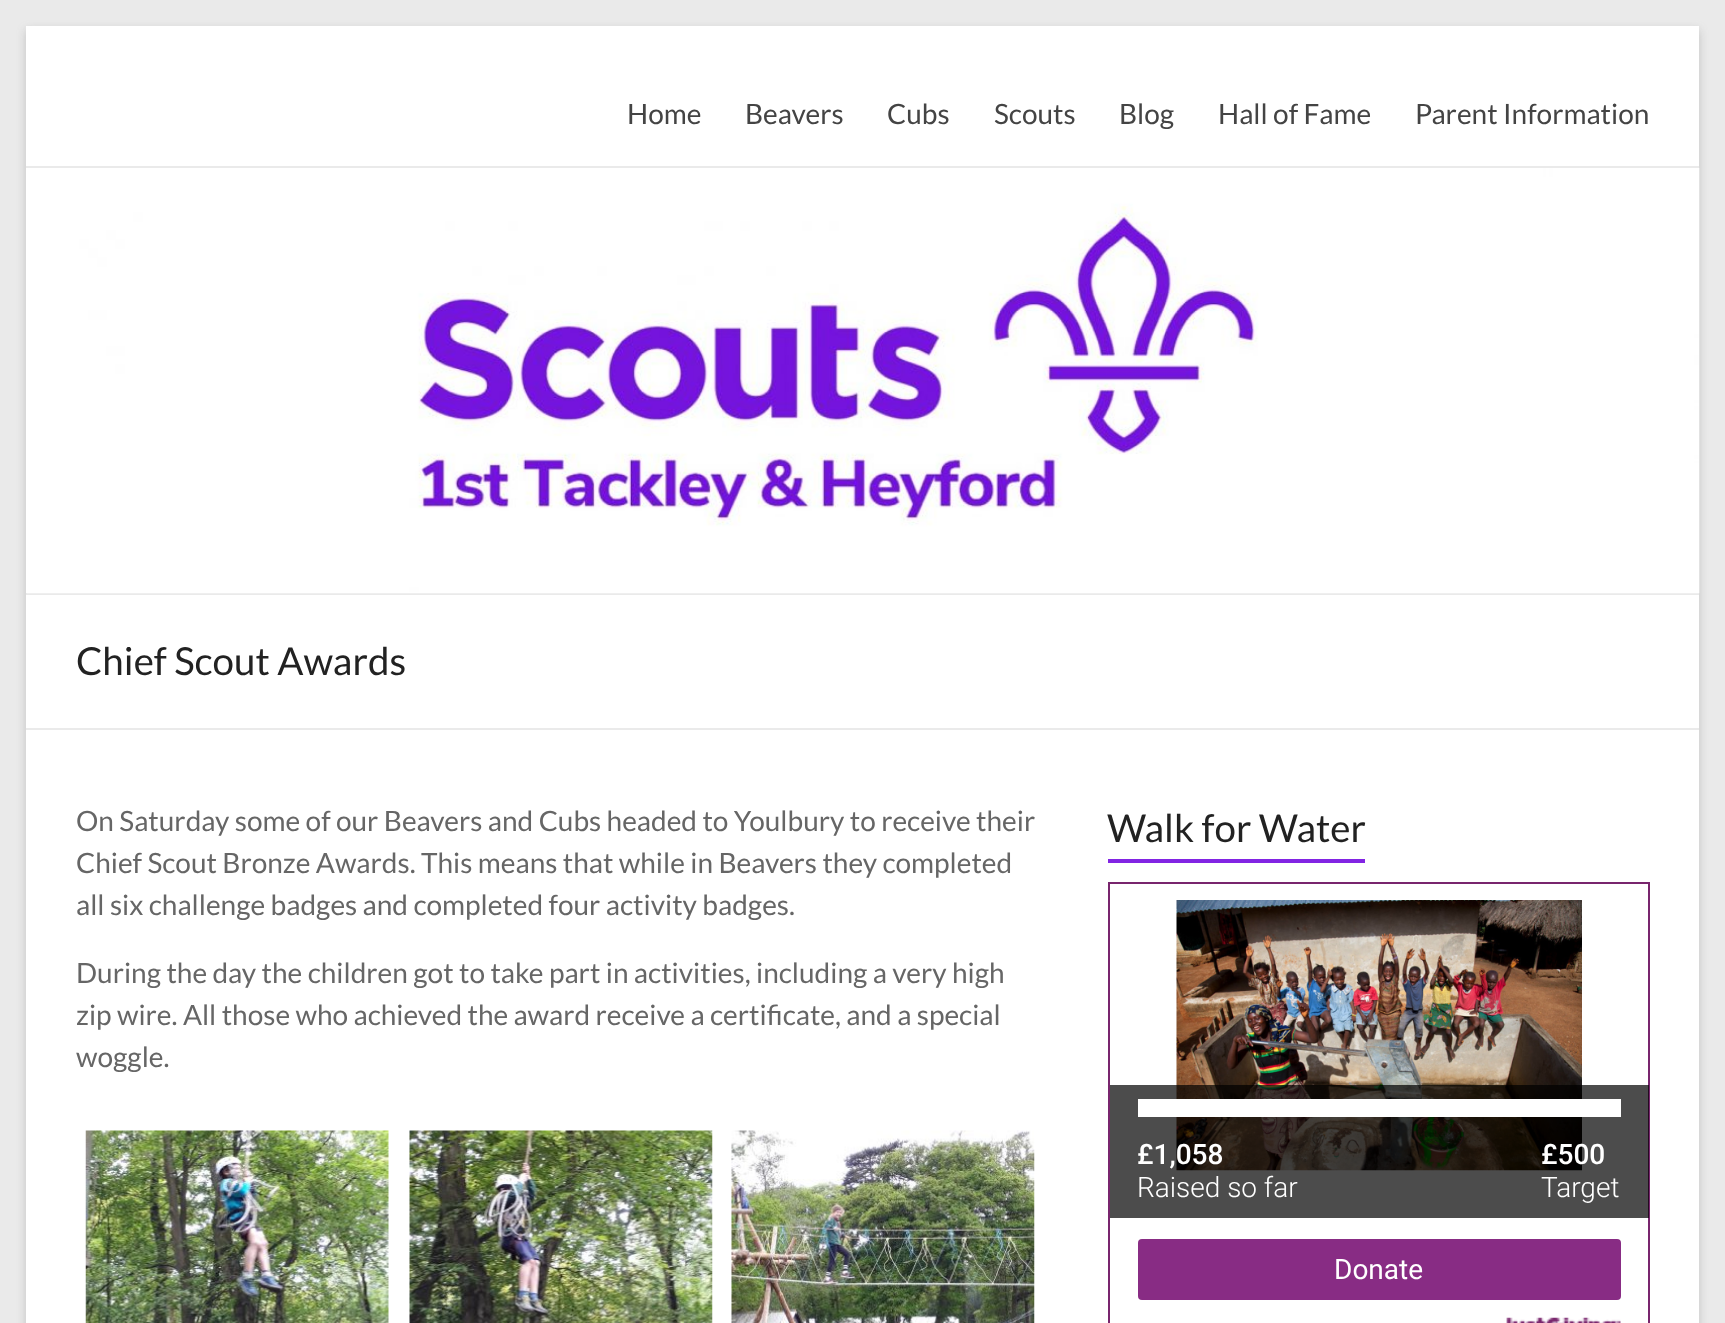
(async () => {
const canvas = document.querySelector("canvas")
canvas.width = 1725
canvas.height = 1323
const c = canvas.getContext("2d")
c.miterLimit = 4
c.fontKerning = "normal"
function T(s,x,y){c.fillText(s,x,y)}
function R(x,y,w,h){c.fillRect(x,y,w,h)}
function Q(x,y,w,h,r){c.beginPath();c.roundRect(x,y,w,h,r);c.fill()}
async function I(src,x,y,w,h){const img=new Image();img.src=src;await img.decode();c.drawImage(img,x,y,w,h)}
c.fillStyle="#eaeaea"
R(0,0,1725,1323)
c.fillStyle="#6464644d"
c.filter="blur(5px)"
c.beginPath()
c.rect(26,30,1673,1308)
c.fill()
c.filter="none"
c.fillStyle="#fff"
R(26,26,1673,1297)
c.fillStyle="#eaeaea"
R(26,166,1673,2)
c.font="28px Lato"
c.fillStyle="#444"
T("Home",627,124)
T("Beavers",745,124)
T("Cubs",887,124)
T("Scouts",994,124)
T("Blog",1119,124)
T("Hall of Fame",1218,124)
T("Parent Information",1415,124)
c.fillStyle="#eaeaea"
R(26,593,1673,2)
await I("1.png",27,168,1673,426)
R(26,728,1673,2)
c.font="38.5px Lato"
c.fillStyle="#222"
T("Chief Scout Awards",76,675)
c.font="28px Lato"
c.fillStyle="#666"
T("On Saturday some of our Beavers and Cubs headed to Youlbury to receive their",76,831)
T("Chief Scout Bronze Awards. This means that while in Beavers they completed",76,873)
T("all six challenge badges and completed four activity badges.",76,915)
T("During the day the children got to take part in activities, including a very high",76,983)
T("zip wire. All those who achieved the award receive a certificate, and a special",76,1025)
T("woggle.",76,1067)
await I("2.png",85,1130,304,193)
await I("3.png",409,1130,304,193)
await I("4.png",731,1130,304,193)
c.font="38.5px Lato"
c.fillStyle="#222"
T("Walk for Water",1107,842)
c.fillStyle="#8224e3"
R(1108,859,257,4)
c.strokeStyle="#78256d"
c.lineWidth=2
c.strokeRect(1109,883,540,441)
await I("5.png",1176,900,406,271)
c.fillStyle="#000000b3"
R(1110,1085,539,133)
c.strokeStyle="#fff"
c.strokeRect(1139,1100,481,16)
c.fillStyle="#fff"
R(1140,1101,479,14)
c.font="500 28px Roboto"
T("£1,058",1137,1164)
c.font="300 28px Roboto"
T("Raised so far",1137,1197)
c.font="500 28px Roboto"
T("£500",1541,1164)
c.font="300 28px Roboto"
T("Target",1541,1197)
c.fillStyle="#882c84"
Q(1138,1239,483,61,4)
c.font="28px Roboto"
c.fillStyle="#fff"
T("Donate",1334,1279)
await I("6.png",1506,1317,115,6)
})()
